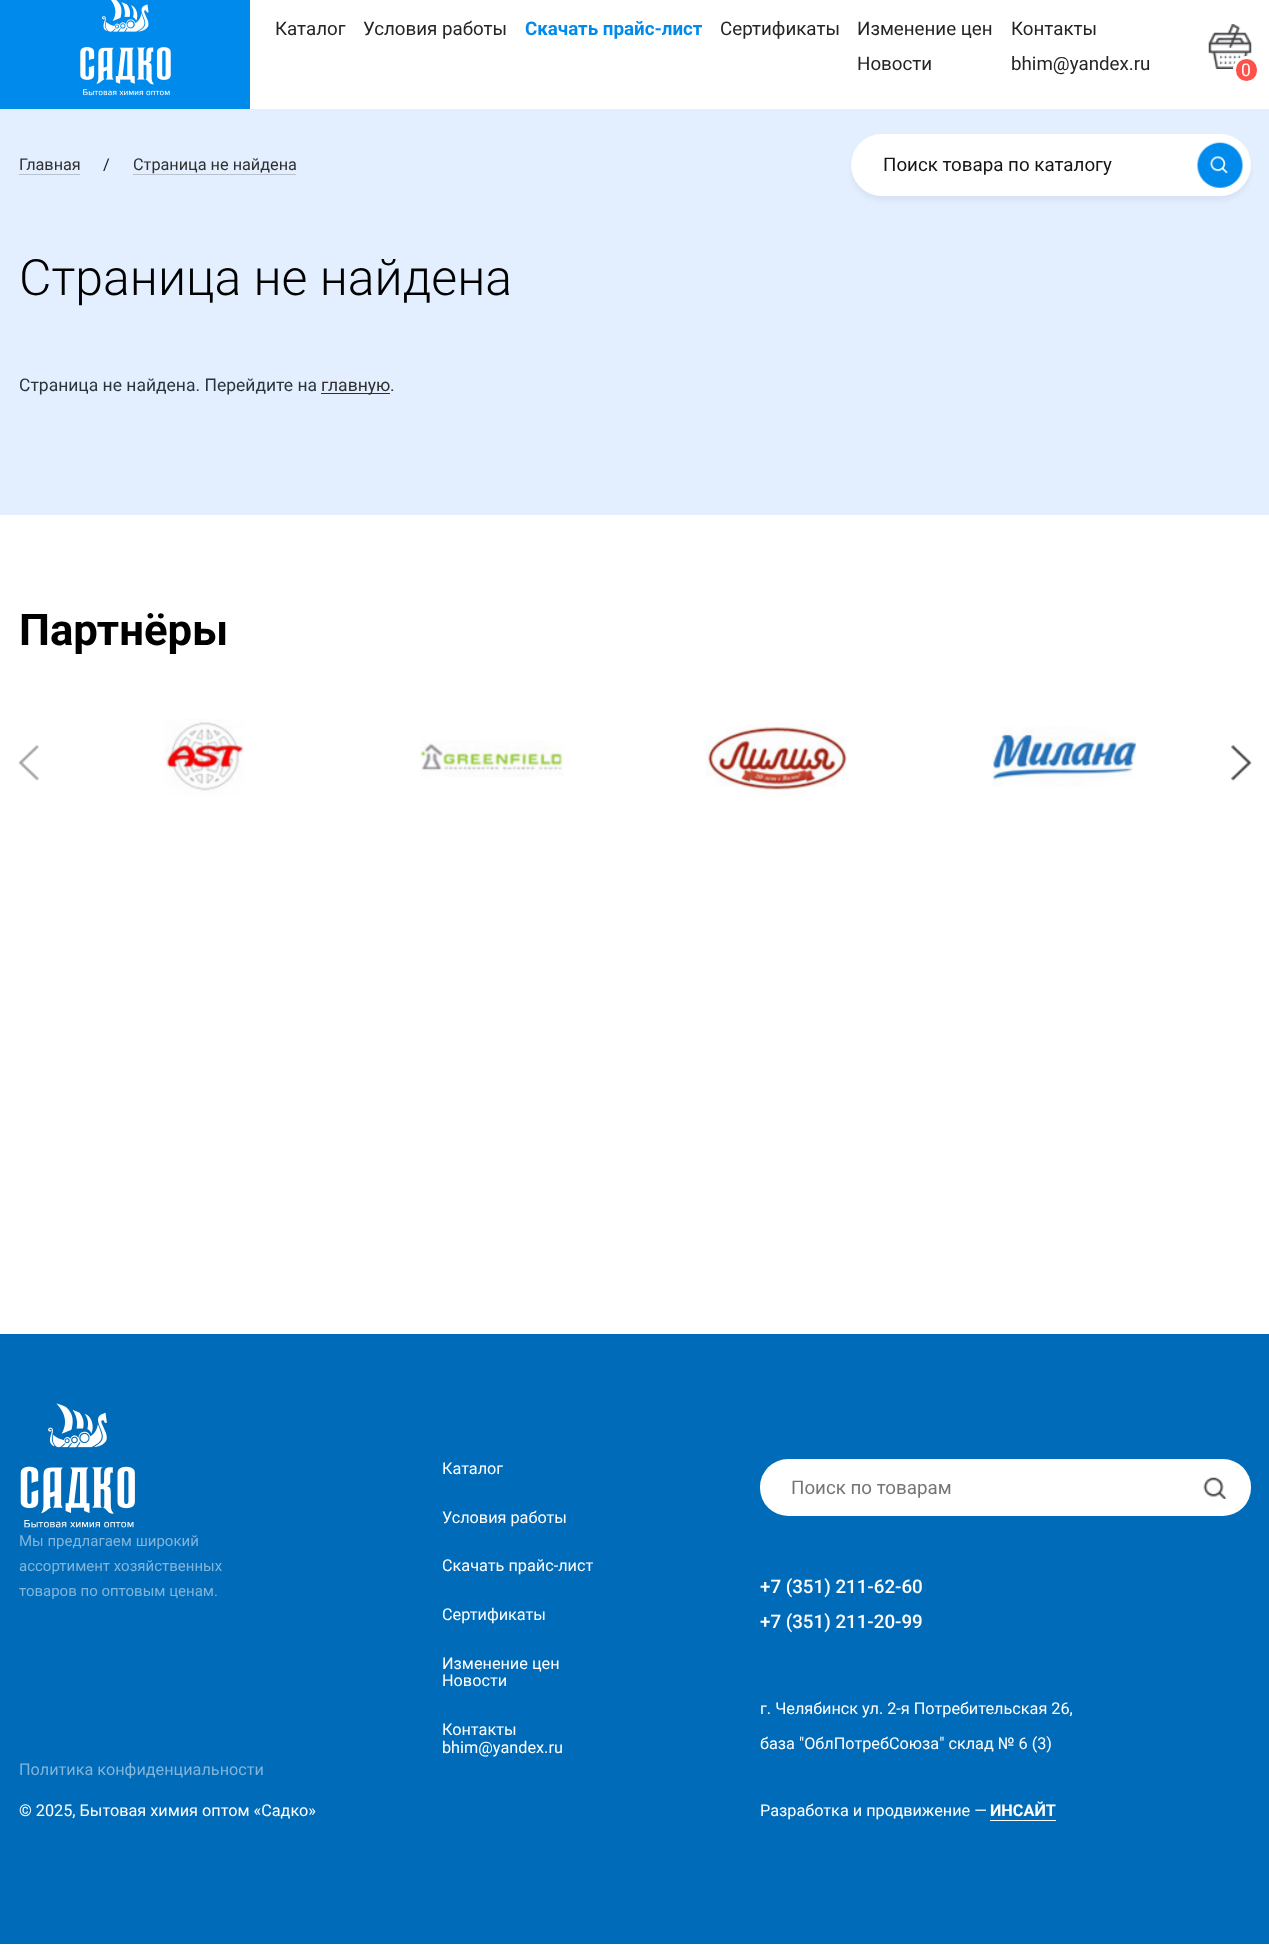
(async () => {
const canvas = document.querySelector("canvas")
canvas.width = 1269
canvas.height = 1959
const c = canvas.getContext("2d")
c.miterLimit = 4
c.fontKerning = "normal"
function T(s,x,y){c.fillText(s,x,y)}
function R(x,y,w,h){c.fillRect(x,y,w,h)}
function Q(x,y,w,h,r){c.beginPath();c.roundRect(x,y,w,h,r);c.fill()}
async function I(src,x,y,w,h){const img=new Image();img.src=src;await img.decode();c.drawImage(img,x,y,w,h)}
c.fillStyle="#fff"
R(0,0,1269,1959)
c.fillStyle="#008aeb"
R(0,0,250,109)
await I("1.png",80,0,91,96)
c.font="18.75px Roboto"
c.fillStyle="#252525"
T("Каталог",275,35)
T("Условия работы",363,35)
c.font="bold 18.75px Roboto"
c.fillStyle="#008aeb"
T("Скачать прайс-лист",525,35)
c.font="18.75px Roboto"
c.fillStyle="#252525"
T("Сертификаты",720,35)
T("Изменение цен",857,35)
T("Новости",857,70)
T("Контакты",1011,35)
T("bhim@yandex.ru",1011,70)
await I("2.png",1208,24,44,45)
c.fillStyle="#ff504a"
c.beginPath()
c.roundRect(1234.5,57.5,24,25,12)
c.fill()
c.strokeStyle="#fff"
c.lineWidth=3
c.stroke()
c.font="17.5px Roboto"
c.fillStyle="#fff"
T("0",1241,76)
c.fillStyle="#e3effe"
R(0,109,1269,406)
c.font="16.25px Roboto"
c.fillStyle="#2f2f2f"
T("Главная",19,170)
c.fillStyle="#b8c2ce"
R(19,174,61,1)
c.fillStyle="#151517"
T("/",103,170)
c.fillStyle="#2f2f2f"
T("Страница не найдена",133,170)
c.fillStyle="#b8c2ce"
R(133,174,163,1)
c.fillStyle="#1429460d"
c.filter="blur(2px)"
c.beginPath()
c.roundRect(851,139,400,62,31)
c.fill()
c.filter="none"
c.fillStyle="#fff"
Q(851,134,400,62,31)
c.font="18.75px Roboto"
c.fillStyle="#151517"
T("Поиск товара по каталогу",883,171)
await I("3.png",1197,142,46,46)
c.font="300 50px Roboto"
c.fillStyle="#000"
T("Страница не найдена",19,295)
c.font="17.5px Roboto"
c.fillStyle="#2b353d"
T("Страница не найдена. Перейдите на",19,391)
c.fillStyle="#2f2f2f"
R(321,393,69,1)
T("главную",321,391)
c.fillStyle="#2b353d"
T(".",390,391)
c.font="bold 43.75px Roboto"
c.fillStyle="#000"
T("Партнёры",19,645)
await I("4.png",164,719,80,77)
await I("5.png",420,740,144,37)
await I("6.png",706,726,141,70)
await I("7.png",992,726,144,61)
await I("8.png",18,745,21,36)
await I("9.png",1231,745,21,36)
c.fillStyle="#006bb8"
R(0,1334,1269,610)
await I("10.png",20,1403,115,125)
c.font="15px Roboto"
c.fillStyle="#80b5dc"
T("Мы предлагаем широкий",19,1546)
T("ассортимент хозяйственных",19,1571)
T("товаров по оптовым ценам.",19,1596)
c.font="16.25px Roboto"
c.fillStyle="#fff"
T("Каталог",442,1474)
T("Условия работы",442,1523)
T("Скачать прайс-лист",442,1571)
T("Сертификаты",442,1620)
T("Изменение цен",442,1669)
T("Новости",442,1686)
T("Контакты",442,1735)
T("bhim@yandex.ru",442,1753)
Q(760,1459,491,57,28)
c.font="18.75px Roboto"
c.fillStyle="#757575"
T("Поиск по товарам",791,1494)
await I("11.png",1203,1477,24,22)
c.font="500 18.75px Roboto"
c.fillStyle="#fff"
T("+7 (351) 211-62-60",760,1593)
T("+7 (351) 211-20-99",760,1628)
c.font="16.25px Roboto"
T("г. Челябинск ул. 2-я Потребительская 26,",760,1714)
T("база \"ОблПотребСоюза\" склад № 6 (3)",760,1749)
c.fillStyle="#80b5dc"
T("Политика конфиденциальности",19,1775)
c.fillStyle="#fff"
T("© 2025, Бытовая химия оптом «Садко»",19,1816)
T("Разработка и продвижение —",760,1816)
c.font="bold 16.25px Roboto"
T("ИНСАЙТ",990,1816)
R(990,1820,66,1)
})()
